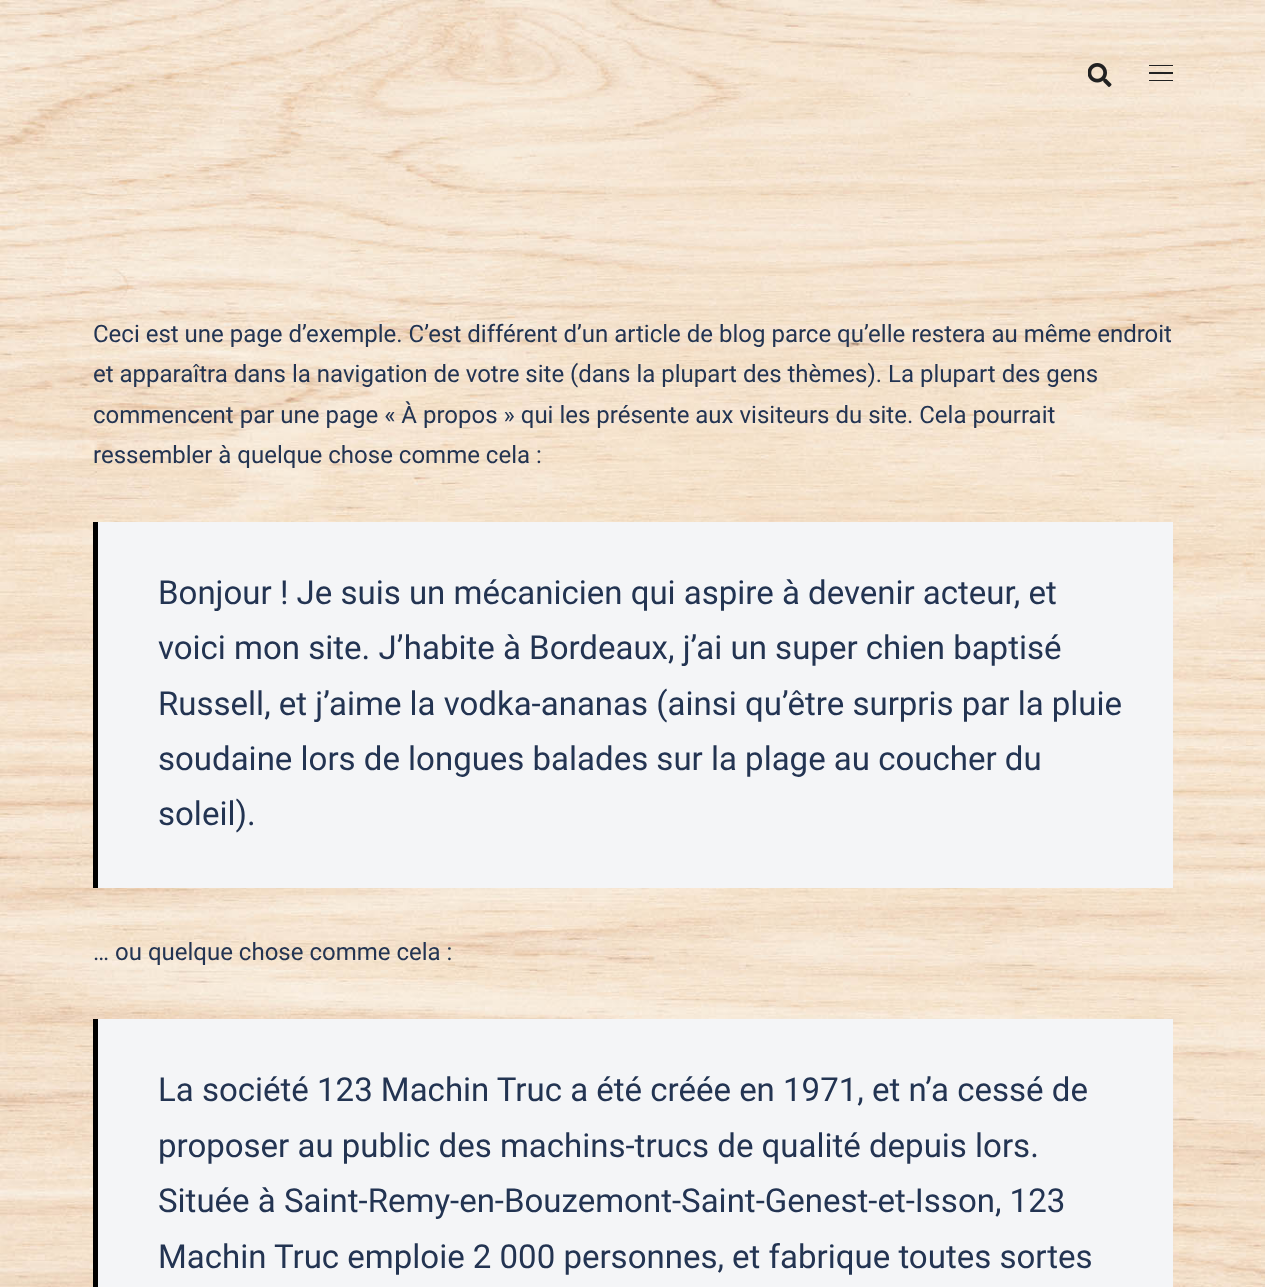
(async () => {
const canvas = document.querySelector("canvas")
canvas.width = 1265
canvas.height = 1287
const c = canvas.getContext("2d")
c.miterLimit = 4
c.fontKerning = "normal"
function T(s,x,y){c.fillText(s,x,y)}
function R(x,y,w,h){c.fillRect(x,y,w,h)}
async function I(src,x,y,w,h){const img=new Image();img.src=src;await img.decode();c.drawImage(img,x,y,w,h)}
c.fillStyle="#fff"
R(0,0,1265,1287)
await I("1.png",0,0,1265,1287)
c.fillStyle="#eaeaea1a"
R(0,149,1265,2)
await I("2.png",1088,63,24,24)
c.fillStyle="#212121"
R(1149,65,24,1)
R(1149,72,24,2)
R(1149,80,24,1)
c.font="24px Roboto"
c.fillStyle="#233452"
T("Ceci est une page d’exemple. C’est différent d’un article de blog parce qu’elle restera au même endroit",93,342)
T("et apparaîtra dans la navigation de votre site (dans la plupart des thèmes). La plupart des gens",93,382)
T("commencent par une page « À propos » qui les présente aux visiteurs du site. Cela pourrait",93,423)
T("ressembler à quelque chose comme cela :",93,463)
c.fillStyle="#f4f5f7"
R(98,522,1075,366)
c.fillStyle="#000"
R(93,522,5,366)
c.font="33px Roboto"
c.fillStyle="#233452"
T("Bonjour ! Je suis un mécanicien qui aspire à devenir acteur, et",158,604)
T("voici mon site. J’habite à Bordeaux, j’ai un super chien baptisé",158,659)
T("Russell, et j’aime la vodka-ananas (ainsi qu’être surpris par la pluie",158,715)
T("soudaine lors de longues balades sur la plage au coucher du",158,770)
T("soleil).",158,825)
c.font="24px Roboto"
T("… ou quelque chose comme cela :",93,960)
c.fillStyle="#f4f5f7"
R(98,1019,1075,268)
c.fillStyle="#000"
R(93,1019,5,268)
c.font="33px Roboto"
c.fillStyle="#233452"
T("La société 123 Machin Truc a été créée en 1971, et n’a cessé de",158,1101)
T("proposer au public des machins-trucs de qualité depuis lors.",158,1157)
T("Située à Saint-Remy-en-Bouzemont-Saint-Genest-et-Isson, 123",158,1212)
T("Machin Truc emploie 2 000 personnes, et fabrique toutes sortes",158,1268)
})()
